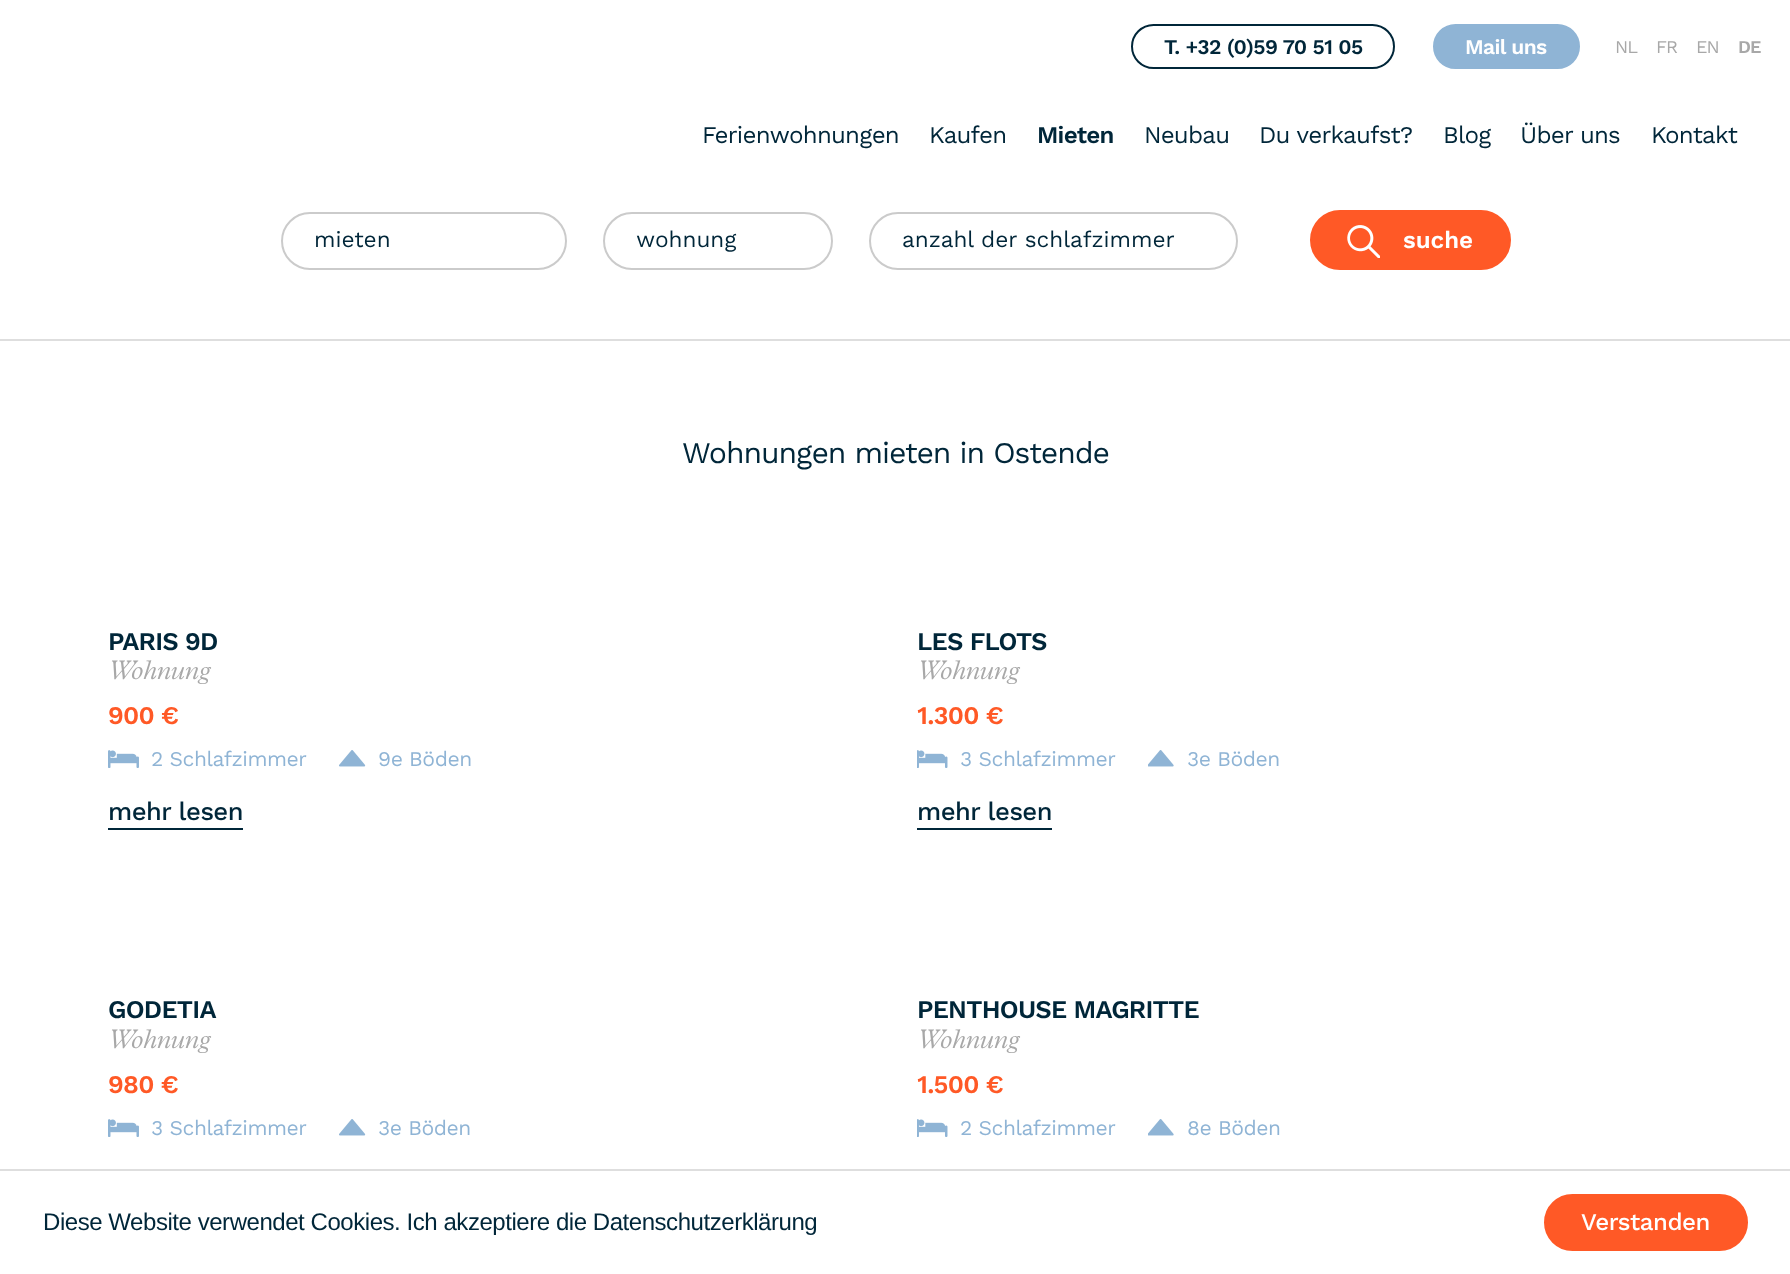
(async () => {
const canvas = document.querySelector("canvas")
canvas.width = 1790
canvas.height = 1274
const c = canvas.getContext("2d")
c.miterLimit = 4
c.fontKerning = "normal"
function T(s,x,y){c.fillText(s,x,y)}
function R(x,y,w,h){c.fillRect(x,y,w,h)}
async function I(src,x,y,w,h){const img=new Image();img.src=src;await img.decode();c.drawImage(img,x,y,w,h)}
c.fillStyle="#fff"
R(0,0,1790,1274)
c.fillStyle="#dedede"
R(0,339,1790,2)
c.beginPath()
c.roundRect(1132,25,262,43,21.5)
c.strokeStyle="#002639"
c.lineWidth=2
c.stroke()
c.letterSpacing="-0.6px"
c.font="600 21px Work Sans"
c.fillStyle="#002639"
T("T. +32 (0)59 70 51 05",1164,54)
c.fillStyle="#8fb4d5"
c.beginPath()
c.roundRect(1434,25,145,43,21.5)
c.fill()
c.strokeStyle="#8fb4d5"
c.stroke()
c.fillStyle="#fff"
T("Mail uns",1465,54)
c.letterSpacing="-1px"
c.font="18px Work Sans"
c.fillStyle="#a8a8a8"
T("NL",1615,53)
T("FR",1656,53)
T("EN",1696,53)
c.font="600 18px Work Sans"
T("DE",1738,53)
c.letterSpacing="-0.75px"
c.font="24px Work Sans"
c.fillStyle="#002639"
T("Ferienwohnungen",702,143)
T("Kaufen",929,143)
c.font="600 24px Work Sans"
T("Mieten",1037,143)
c.font="24px Work Sans"
T("Neubau",1144,143)
T("Du verkaufst?",1259,143)
T("Blog",1443,143)
T("Über uns",1520,143)
T("Kontakt",1651,143)
c.beginPath()
c.roundRect(282,213,284,56,28)
c.strokeStyle="#cbcbcb"
c.stroke()
c.letterSpacing="0px"
c.font="22.5px Work Sans"
T("mieten",314,247)
c.beginPath()
c.roundRect(604,213,228,56,28)
c.stroke()
T("wohnung",636,247)
c.beginPath()
c.roundRect(870,213,367,56,28)
c.stroke()
T("anzahl der schlafzimmer",902,247)
c.fillStyle="#ff5926"
c.beginPath()
c.roundRect(1311,211,199,58,29)
c.fill()
c.strokeStyle="#ff5926"
c.stroke()
await I("1.png",1347,225,33,33)
c.font="600 24px Work Sans"
c.fillStyle="#fff"
T("suche",1403,248)
c.letterSpacing="-1.05px"
c.font="30px Work Sans"
c.fillStyle="#002639"
T("Wohnungen mieten in Ostende",682,463)
c.letterSpacing="-0.75px"
c.font="600 25.5px Work Sans"
T("PARIS 9D",108,650)
c.letterSpacing="-0.25px"
c.font="italic 300 27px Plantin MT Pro"
c.fillStyle="#a8a8a8"
T("Wohnung",108,679)
c.letterSpacing="-0.75px"
c.font="600 25.5px Work Sans"
c.fillStyle="#ff5926"
T("900 €",108,724)
await I("2.png",108,750,31,18)
c.letterSpacing="-0.45px"
c.font="21px Work Sans"
c.fillStyle="#8fb4d5"
T("2 Schlafzimmer",151,766)
await I("3.png",339,750,27,17)
T("9e Böden",378,766)
c.fillStyle="#002639"
R(108,828,135,2)
c.letterSpacing="-0.5px"
c.font="500 25.5px Work Sans"
T("mehr lesen",108,820)
c.letterSpacing="-0.75px"
c.font="600 25.5px Work Sans"
T("LES FLOTS",917,650)
c.letterSpacing="-0.25px"
c.font="italic 300 27px Plantin MT Pro"
c.fillStyle="#a8a8a8"
T("Wohnung",917,679)
c.letterSpacing="-0.75px"
c.font="600 25.5px Work Sans"
c.fillStyle="#ff5926"
T("1.300 €",917,724)
await I("4.png",917,750,31,18)
c.letterSpacing="-0.45px"
c.font="21px Work Sans"
c.fillStyle="#8fb4d5"
T("3 Schlafzimmer",960,766)
await I("5.png",1148,750,26,17)
T("3e Böden",1187,766)
c.fillStyle="#002639"
R(917,828,135,2)
c.letterSpacing="-0.5px"
c.font="500 25.5px Work Sans"
T("mehr lesen",917,820)
c.letterSpacing="-0.75px"
c.font="600 25.5px Work Sans"
T("GODETIA",108,1018)
c.letterSpacing="-0.25px"
c.font="italic 300 27px Plantin MT Pro"
c.fillStyle="#a8a8a8"
T("Wohnung",108,1048)
c.letterSpacing="-0.75px"
c.font="600 25.5px Work Sans"
c.fillStyle="#ff5926"
T("980 €",108,1093)
await I("2.png",108,1119,31,18)
c.letterSpacing="-0.45px"
c.font="21px Work Sans"
c.fillStyle="#8fb4d5"
T("3 Schlafzimmer",151,1135)
await I("3.png",339,1119,27,17)
T("3e Böden",378,1135)
c.letterSpacing="-0.75px"
c.font="600 25.5px Work Sans"
c.fillStyle="#002639"
T("PENTHOUSE MAGRITTE",917,1018)
c.letterSpacing="-0.25px"
c.font="italic 300 27px Plantin MT Pro"
c.fillStyle="#a8a8a8"
T("Wohnung",917,1048)
c.letterSpacing="-0.75px"
c.font="600 25.5px Work Sans"
c.fillStyle="#ff5926"
T("1.500 €",917,1093)
await I("4.png",917,1119,31,18)
c.letterSpacing="-0.45px"
c.font="21px Work Sans"
c.fillStyle="#8fb4d5"
T("2 Schlafzimmer",960,1135)
await I("5.png",1148,1119,26,17)
T("8e Böden",1187,1135)
c.fillStyle="#dedede"
R(0,1169,1790,2)
c.font="24px Liberation Sans"
c.fillStyle="#002639"
T("Diese Website verwendet Cookies. Ich akzeptiere die Datenschutzerklärung",43,1230)
c.fillStyle="#ff5926"
c.beginPath()
c.roundRect(1545,1195,202,55,27.5)
c.fill()
c.stroke()
c.font="500 24px Work Sans"
c.fillStyle="#fff"
T("Verstanden",1581,1230)
})()
